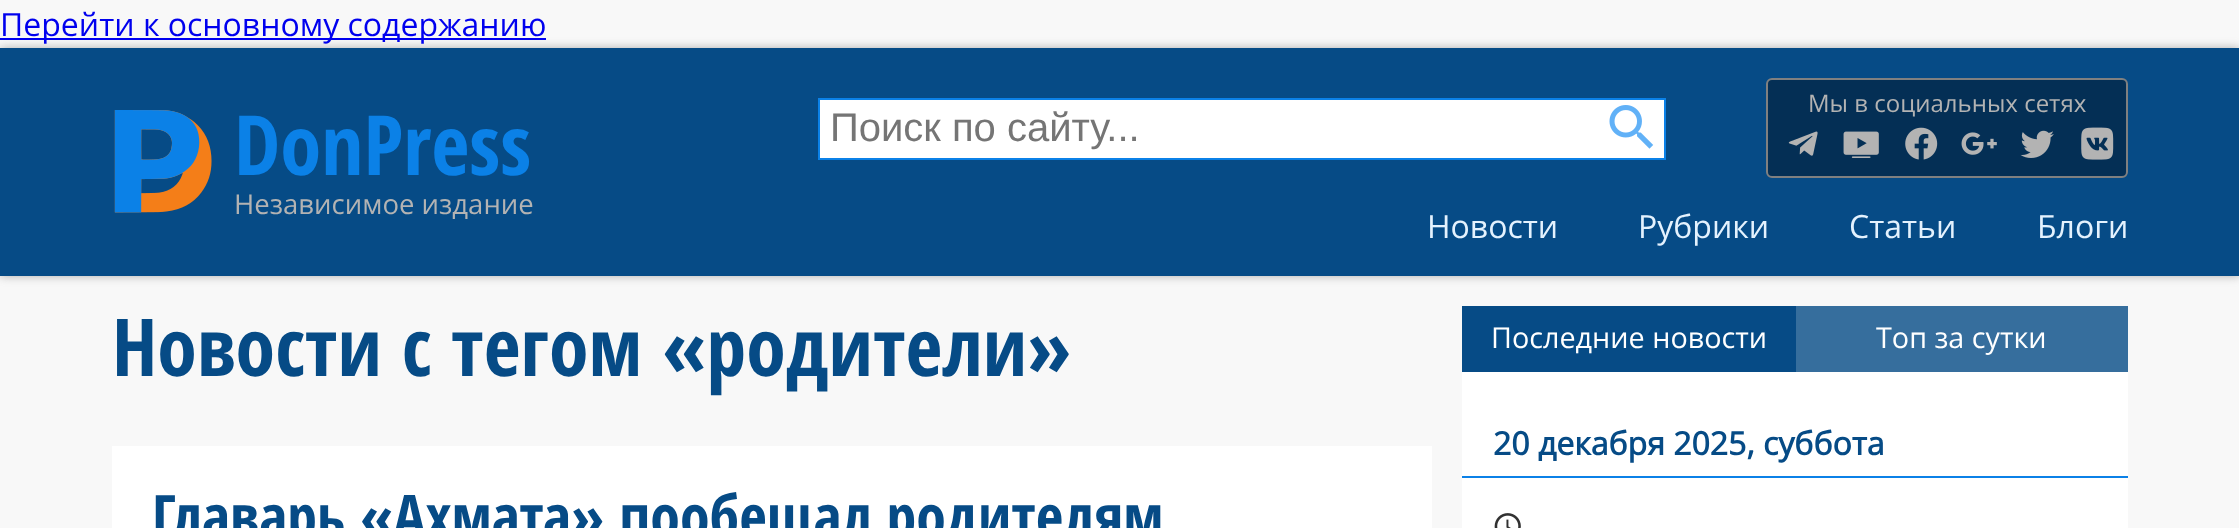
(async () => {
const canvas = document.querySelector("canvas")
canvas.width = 2239
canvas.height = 528
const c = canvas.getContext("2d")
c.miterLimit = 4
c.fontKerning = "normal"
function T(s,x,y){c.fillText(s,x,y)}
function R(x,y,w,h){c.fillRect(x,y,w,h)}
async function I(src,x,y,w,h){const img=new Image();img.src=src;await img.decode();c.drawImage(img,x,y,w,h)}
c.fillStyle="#f8f8f8"
R(0,0,2239,528)
c.fillStyle="#64646480"
c.filter="blur(5px)"
c.beginPath()
c.rect(0,48,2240,228)
c.fill()
c.filter="none"
c.fillStyle="#00e"
R(0,38,546,2)
c.font="32px Open Sans"
T("Перейти к основному содержанию",0,36)
c.fillStyle="#064b86"
R(0,48,2239,228)
await I("1.png",114,110,98,103)
c.font="bold 83px Open Sans Condensed"
c.fillStyle="#0b81e7"
T("DonPress",234,175)
c.font="27.5px Open Sans"
c.fillStyle="#b3b3b3"
T("Независимое издание",234,214)
c.fillStyle="#042f55"
c.beginPath()
c.roundRect(1767,79,360,98,5)
c.fill()
c.strokeStyle="#808080"
c.lineWidth=2
c.stroke()
c.font="24px Open Sans"
c.fillStyle="#b3b3b3"
T("Мы в социальных сетях",1808,112)
await I("2.png",1788,131,30,25)
await I("3.png",1843,131,36,27)
await I("4.png",1905,127,33,33)
await I("5.png",1961,132,36,23)
await I("6.png",2020,130,34,28)
await I("7.png",2081,127,33,33)
c.fillStyle="#fff"
c.beginPath()
c.rect(819,99,846,60)
c.fill()
c.strokeStyle="#0b81e7"
c.stroke()
c.font="40px Liberation Sans"
c.fillStyle="#757575"
T("Поиск по сайту...",830,141)
await I("8.png",1609,105,45,44)
c.font="32px Open Sans"
c.fillStyle="#e4f2fe"
T("Новости",1427,238)
T("Рубрики",1638,238)
T("Статьи",1849,238)
T("Блоги",2037,238)
c.font="bold 80px Open Sans Condensed"
c.fillStyle="#064b86"
T("Новости с тегом «родители»",112,376)
c.fillStyle="#fff"
R(112,446,1320,82)
c.font="bold 60px Open Sans Condensed"
c.fillStyle="#064b86"
T("Главарь «Ахмата» пообещал родителям",152,538)
R(1462,306,334,66)
c.font="28.75px Open Sans"
c.fillStyle="#fff"
T("Последние новости",1491,348)
c.fillStyle="#366e9d"
R(1796,306,332,66)
c.fillStyle="#fff"
T("Топ за сутки",1876,348)
R(1462,372,666,156)
c.fillStyle="#0b81e7"
R(1462,476,666,2)
c.font="bold 32px Open Sans"
c.fillStyle="#064b86"
T("20 декабря 2025, суббота",1493,455)
await I("9.png",1494,513,27,15)
})()
